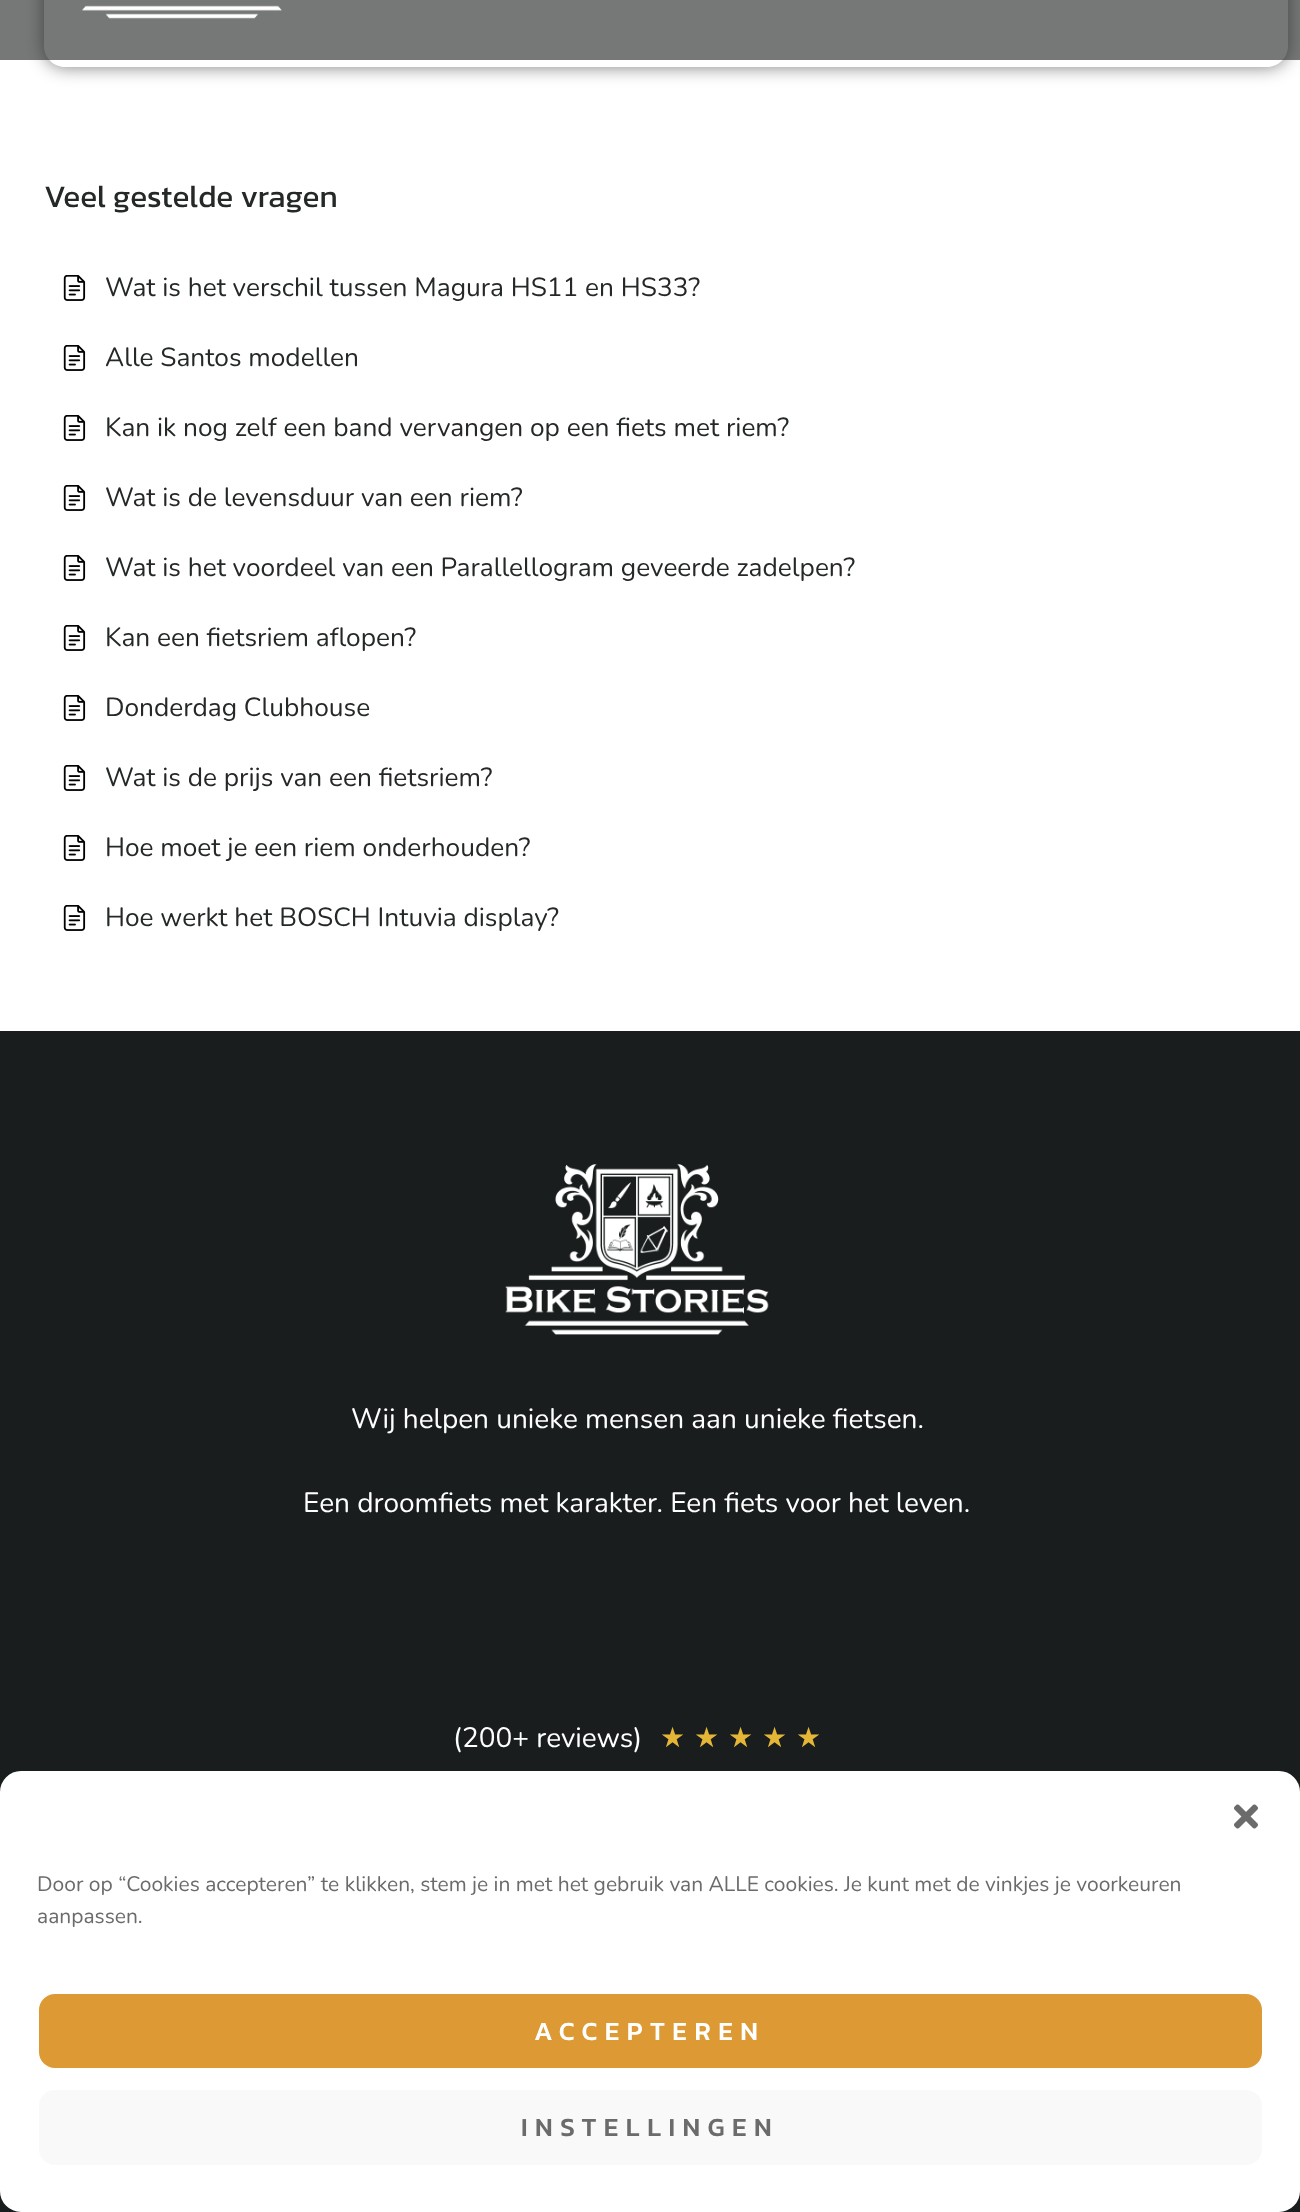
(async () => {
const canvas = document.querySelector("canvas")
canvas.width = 1300
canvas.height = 2212
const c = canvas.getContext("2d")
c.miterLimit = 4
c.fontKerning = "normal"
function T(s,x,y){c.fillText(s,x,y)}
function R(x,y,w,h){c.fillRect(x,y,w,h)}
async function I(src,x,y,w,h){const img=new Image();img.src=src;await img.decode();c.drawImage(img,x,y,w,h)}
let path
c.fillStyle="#191d1d"
R(0,0,1300,2212)
c.fillStyle="#fff"
R(0,0,1300,1031)
c.save()
path = new Path2D("M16 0h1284v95h-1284zm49-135h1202c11.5 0 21 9.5 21 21v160c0 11.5-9.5 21-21 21h-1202c-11.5 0-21-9.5-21-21v-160c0-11.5 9.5-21 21-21z")
c.clip(path,"evenodd")
c.fillStyle="#00000080"
c.filter="blur(9px)"
c.beginPath()
c.roundRect(44,-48,1244,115,21)
c.fill()
c.filter="none"
c.restore()
c.fillStyle="#1a1e1e99"
R(0,0,1300,60)
await I("1.png",82,5,200,14)
c.font="31.5px Kanit"
c.fillStyle="#252828"
T("Veel gestelde vragen",44,207)
await I("2.png",63,275,23,26)
c.font="26.25px Nunito"
T("Wat is het verschil tussen Magura HS11 en HS33?",105,296)
await I("2.png",63,345,23,26)
T("Alle Santos modellen",105,366)
await I("2.png",63,415,23,26)
T("Kan ik nog zelf een band vervangen op een fiets met riem?",105,436)
await I("2.png",63,485,23,26)
T("Wat is de levensduur van een riem?",105,506)
await I("2.png",63,555,23,26)
T("Wat is het voordeel van een Parallellogram geveerde zadelpen?",105,576)
await I("2.png",63,625,23,26)
T("Kan een fietsriem aflopen?",105,646)
await I("2.png",63,695,23,26)
T("Donderdag Clubhouse",105,716)
await I("2.png",63,765,23,26)
T("Wat is de prijs van een fietsriem?",105,786)
await I("2.png",63,835,23,26)
T("Hoe moet je een riem onderhouden?",105,856)
await I("2.png",63,905,23,26)
T("Hoe werkt het BOSCH Intuvia display?",105,926)
await I("3.png",505,1164,264,171)
c.font="28px Nunito"
c.fillStyle="#fff"
T("Wij helpen unieke mensen aan unieke fietsen.",351,1428)
T("Een droomfiets met karakter. Een fiets voor het leven.",303,1512)
T("(200+ reviews)",453,1747)
c.font="28px DejaVu Sans"
c.fillStyle="#e5b537"
T("★ ★ ★ ★ ★",660,1747)
c.fillStyle="#fff"
c.beginPath()
c.roundRect(1,1772,1298,439,20)
c.fill()
c.strokeStyle="#fff"
c.lineWidth=2
c.stroke()
await I("4.png",1234,1804,24,25)
c.font="21px Nunito"
c.fillStyle="#6b6b6b"
T("Door op “Cookies accepteren” te klikken, stem je in met het gebruik van ALLE cookies. Je kunt met de vinkjes je voorkeuren",37,1891)
T("aanpassen.",37,1923)
c.fillStyle="#d93"
c.beginPath()
c.roundRect(38,1993,1225,76,17)
c.fill()
c.stroke()
c.letterSpacing="7.5px"
c.font="500 26.25px Kanit"
c.fillStyle="#fff"
T("ACCEPTEREN",534,2040)
c.fillStyle="#f9f9f9"
c.beginPath()
c.roundRect(38,2089,1225,77,17)
c.fill()
c.stroke()
c.fillStyle="#6b6b6b"
T("INSTELLINGEN",521,2136)
})()
